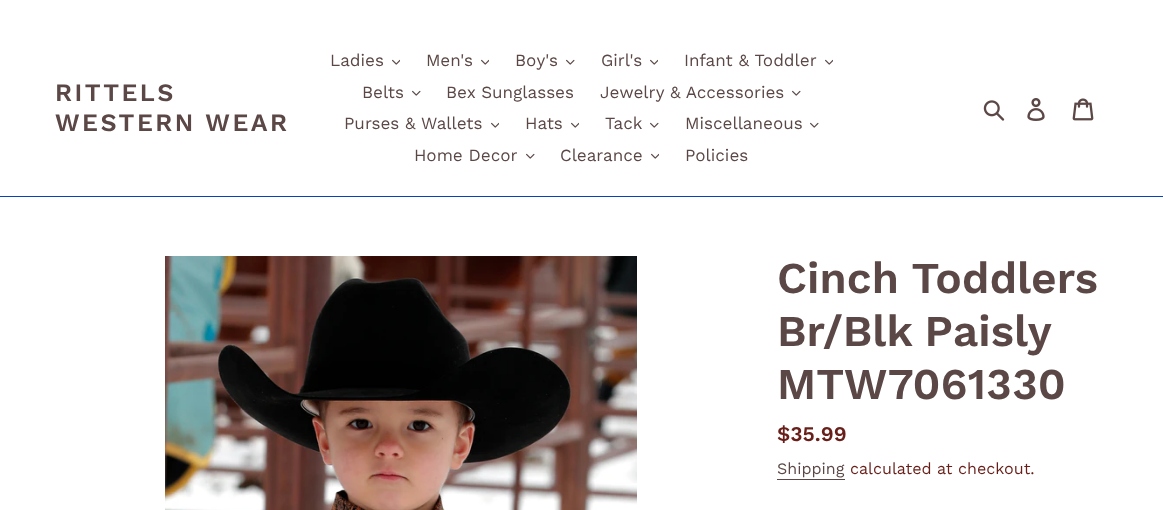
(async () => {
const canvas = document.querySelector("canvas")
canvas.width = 1163
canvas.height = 510
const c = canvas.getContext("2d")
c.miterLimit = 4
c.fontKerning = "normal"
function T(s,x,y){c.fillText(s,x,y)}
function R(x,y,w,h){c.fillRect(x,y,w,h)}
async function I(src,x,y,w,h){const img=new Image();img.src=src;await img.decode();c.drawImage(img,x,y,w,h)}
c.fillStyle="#fff"
R(0,0,1163,510)
c.fillStyle="#0a43b5"
R(0,196,1163,1)
c.letterSpacing="2.5px"
c.font="600 25px Work Sans"
c.fillStyle="#5b4846"
T("RITTELS",55,101)
T("WESTERN WEAR",55,131)
c.letterSpacing="0px"
c.font="17px Work Sans"
T("Ladies",330,66)
await I("1.png",392,59,8,6)
T("Men's",426,66)
await I("1.png",481,59,8,6)
T("Boy's",515,66)
await I("2.png",566,59,9,6)
T("Girl's",601,66)
await I("1.png",650,59,8,6)
T("Infant & Toddler",684,66)
await I("1.png",825,59,8,6)
T("Belts",362,98)
await I("2.png",412,90,9,6)
T("Bex Sunglasses",446,98)
T("Jewelry & Accessories",600,98)
await I("2.png",792,90,9,6)
T("Purses & Wallets",344,129)
await I("1.png",491,122,8,6)
T("Hats",525,129)
await I("1.png",571,122,8,6)
T("Tack",605,129)
await I("2.png",650,122,9,6)
T("Miscellaneous",685,129)
await I("2.png",810,122,9,6)
T("Home Decor",414,161)
await I("2.png",526,153,9,6)
T("Clearance",560,161)
await I("1.png",651,153,8,6)
T("Policies",685,161)
await I("3.png",983,100,22,21)
await I("4.png",1027,98,18,23)
await I("5.png",1072,98,22,23)
await I("6.png",165,256,472,254)
c.font="600 44px Work Sans"
T("Cinch Toddlers",777,293)
c.wordSpacing="-1px"
T("Br/Blk Paisly",777,346)
c.wordSpacing="0px"
T("MTW7061330",777,399)
c.font="600 21px Work Sans"
c.fillStyle="#681f19"
T("$35.99",777,441)
c.font="16px Work Sans"
c.fillStyle="#5b4846"
T("Shipping",777,474)
R(777,479,68,1)
c.fillStyle="#681f19"
T("calculated at checkout.",850,474)
})()
